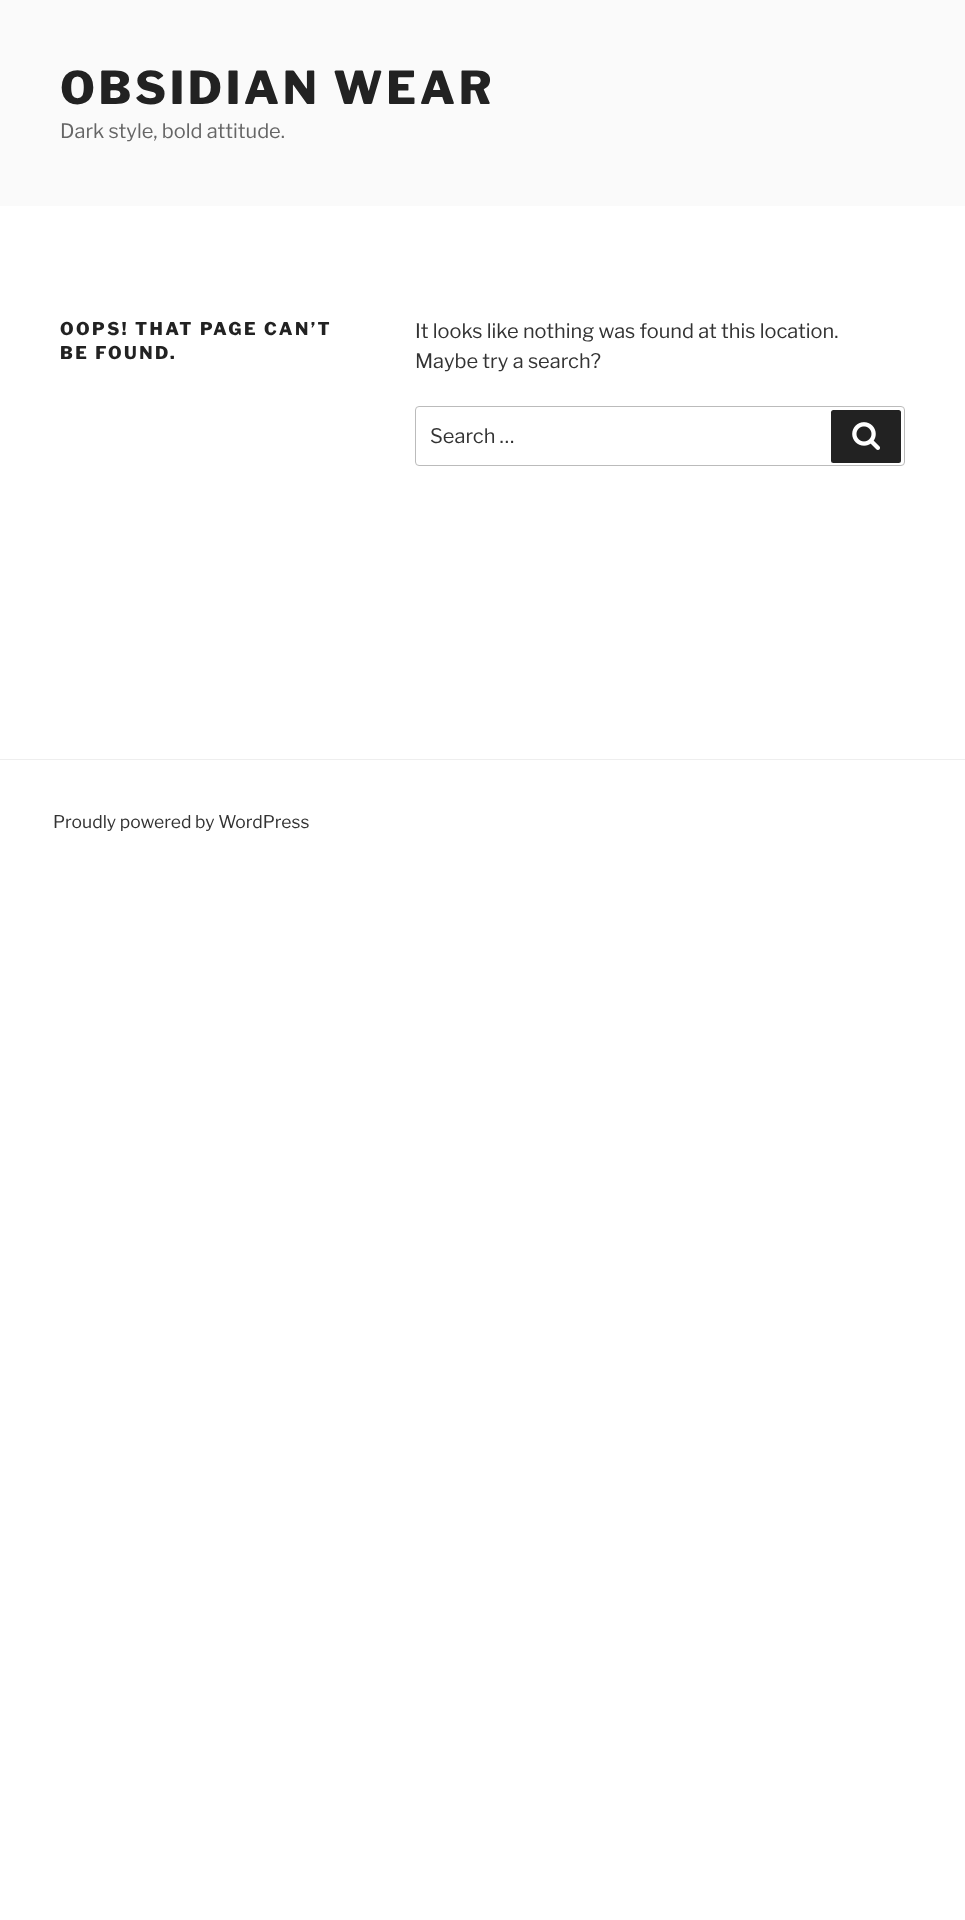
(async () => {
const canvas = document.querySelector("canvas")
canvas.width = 965
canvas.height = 1920
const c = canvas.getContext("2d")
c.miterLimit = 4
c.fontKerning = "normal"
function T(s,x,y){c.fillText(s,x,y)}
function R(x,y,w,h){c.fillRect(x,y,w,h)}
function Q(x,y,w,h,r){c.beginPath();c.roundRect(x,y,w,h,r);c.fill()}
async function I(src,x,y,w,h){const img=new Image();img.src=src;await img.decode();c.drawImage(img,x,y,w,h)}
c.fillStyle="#fff"
R(0,0,965,1920)
c.fillStyle="#fafafa"
R(0,0,965,206)
c.letterSpacing="3.6px"
c.font="100 45px Libre Franklin"
c.fillStyle="#222"
T("OBSIDIAN WEAR",60,104)
c.letterSpacing="0px"
c.font="100 20px 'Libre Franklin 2'"
c.fillStyle="#666"
T("Dark style, bold attitude.",60,138)
c.letterSpacing="2.45px"
c.font="100 17.5px Libre Franklin"
c.fillStyle="#222"
T("OOPS! THAT PAGE CAN’T",60,335)
T("BE FOUND.",60,359)
c.letterSpacing="0px"
c.font="100 20px 'Libre Franklin 2'"
c.fillStyle="#333"
T("It looks like nothing was found at this location.",415,338)
T("Maybe try a search?",415,368)
c.beginPath()
c.roundRect(415.5,406.5,489,59,3.5)
c.strokeStyle="#bbb"
c.stroke()
T("Search …",430,443)
c.fillStyle="#222"
Q(831,410,70,53,2.5)
await I("1.png",852,422,28,28)
c.fillStyle="#eee"
R(0,759,965,1)
c.font="100 17.5px 'Libre Franklin 2'"
c.fillStyle="#333"
T("Proudly powered by WordPress",53,828)
})()
